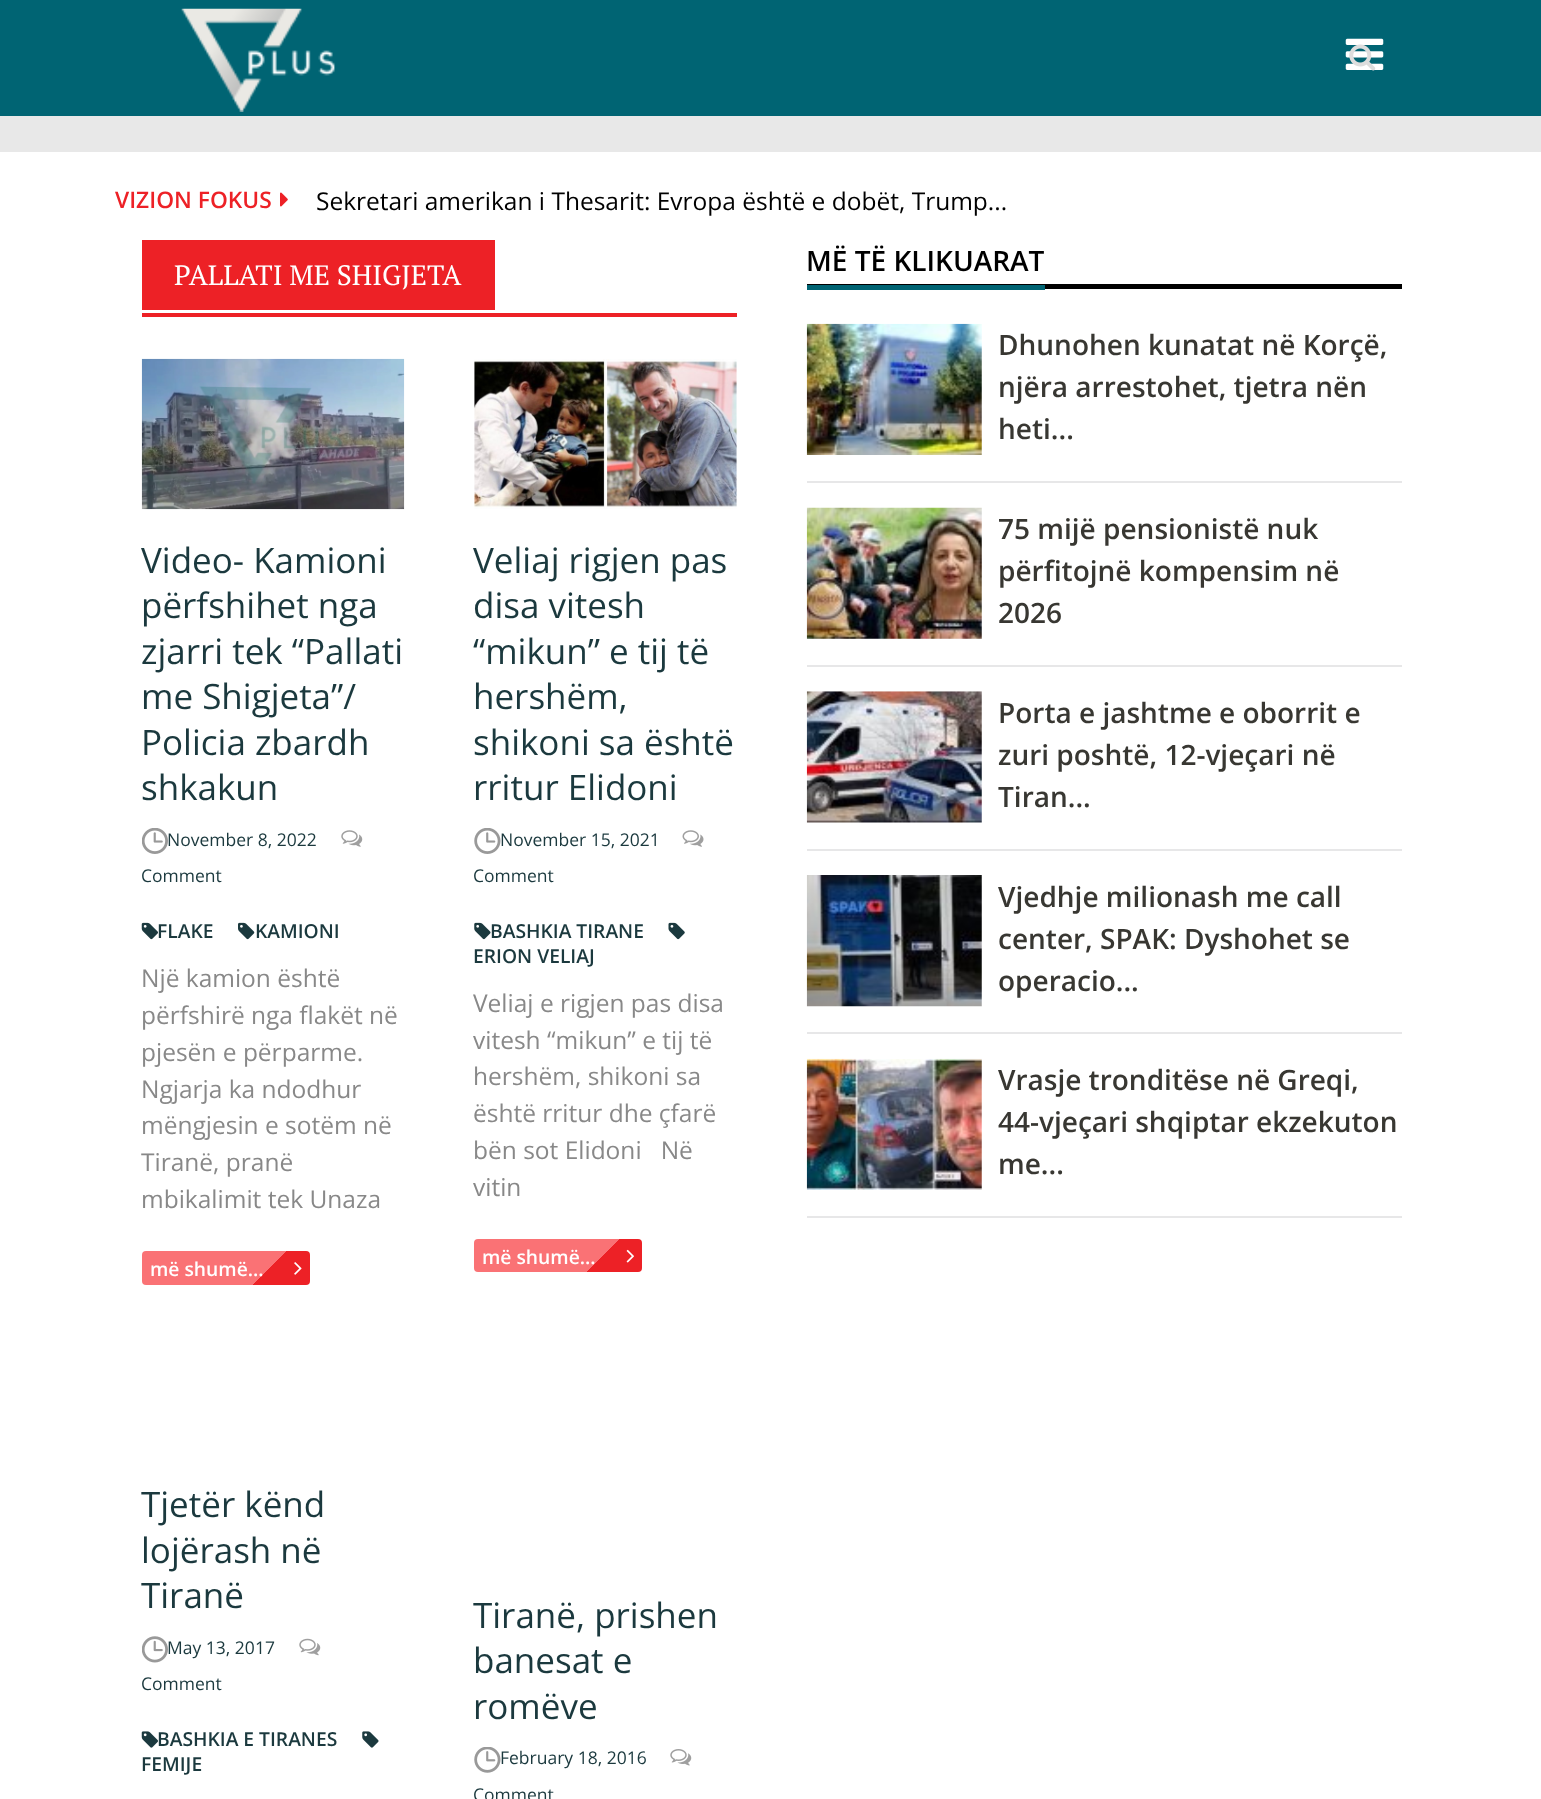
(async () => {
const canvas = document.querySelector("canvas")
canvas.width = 1541
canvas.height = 1799
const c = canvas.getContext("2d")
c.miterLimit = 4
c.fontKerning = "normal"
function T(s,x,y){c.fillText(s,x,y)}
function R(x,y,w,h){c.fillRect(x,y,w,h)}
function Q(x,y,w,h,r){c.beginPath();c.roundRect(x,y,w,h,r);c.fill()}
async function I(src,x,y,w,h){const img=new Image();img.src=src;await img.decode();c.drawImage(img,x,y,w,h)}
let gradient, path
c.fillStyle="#fff"
R(0,0,1541,1799)
c.fillStyle="#006473"
R(0,0,1541,116)
await I("1.png",181,8,154,104)
await I("2.png",1345,38,39,32)
await I("3.png",1349,44,27,27)
c.fillStyle="#e8e8e8"
R(0,116,1541,36)
c.font="600 22.75px Open Sans"
c.fillStyle="#ed2126"
T("VIZION FOKUS",115,208)
await I("4.png",280,192,8,15)
c.font="24.5px Open Sans"
c.fillStyle="#000"
T("Sekretari amerikan i Thesarit: Evropa është e dobët, Trump...",316,210)
c.fillStyle="#ed2126"
R(142,313,595,4)
R(142,240,353,70)
c.font="28px PT Serif"
c.fillStyle="#fff"
T("PALLATI ME SHIGJETA",174,285)
await I("5.png",141,358,264,152)
c.font="35px Open Sans"
c.fillStyle="#1b393e"
T("Video- Kamioni",141,573)
T("përfshihet nga",141,618)
T("zjarri tek “Pallati",141,664)
T("me Shigjeta”/",141,709)
T("Policia zbardh",141,755)
T("shkakun",141,800)
await I("6.png",142,828,26,26)
c.font="17.5px Open Sans"
T("November 8, 2022",167,846)
await I("7.png",341,830,22,17)
T("Comment",141,882)
await I("8.png",141,922,17,18)
c.font="600 19.25px Open Sans"
T("FLAKE",157,938)
await I("9.png",238,922,17,18)
T("KAMIONI",255,938)
c.font="24.5px Open Sans"
c.fillStyle="#888"
T("Një kamion është",141,987)
T("përfshirë nga flakët në",141,1024)
T("pjesën e përparme.",141,1061)
T("Ngjarja ka ndodhur",141,1098)
T("mëngjesin e sotëm në",141,1134)
T("Tiranë, pranë",141,1171)
T("mbikalimit tek Unaza",141,1208)
gradient = c.createLinearGradient(175,1218,276,1318)
gradient.addColorStop(.72,"#fa7275")
gradient.addColorStop(.72,"#ed2126")
c.fillStyle = gradient
Q(142,1251,168,34,4)
c.font="600 19.25px Open Sans"
c.fillStyle="#fff"
T("më shumë...",150,1276)
await I("10.png",294,1262,8,13)
await I("11.png",474,359,263,150)
c.font="35px Open Sans"
c.fillStyle="#1b393e"
T("Veliaj rigjen pas",473,573)
T("disa vitesh",473,618)
T("“mikun” e tij të",473,664)
T("hershëm,",473,709)
T("shikoni sa është",473,755)
T("rritur Elidoni",473,800)
await I("12.png",474,828,27,26)
c.font="17.5px Open Sans"
T("November 15, 2021",500,846)
await I("13.png",682,830,22,17)
T("Comment",473,882)
await I("14.png",474,922,17,18)
c.font="600 19.25px Open Sans"
T("BASHKIA TIRANE",490,938)
await I("15.png",668,922,17,18)
T("ERION VELIAJ",473,963)
c.font="24.5px Open Sans"
c.fillStyle="#888"
T("Veliaj e rigjen pas disa",473,1012)
T("vitesh “mikun” e tij të",473,1049)
T("hershëm, shikoni sa",473,1085)
T("është rritur dhe çfarë",473,1122)
T("bën sot Elidoni   Në",473,1159)
T("vitin",473,1196)
gradient = c.createLinearGradient(508,1205,609,1306)
gradient.addColorStop(.72,"#fa7275")
gradient.addColorStop(.72,"#ed2126")
c.fillStyle = gradient
Q(474,1239,168,33,4)
c.font="600 19.25px Open Sans"
c.fillStyle="#fff"
T("më shumë...",482,1264)
await I("16.png",626,1249,8,14)
c.font="35px Open Sans"
c.fillStyle="#1b393e"
T("Tjetër kënd",141,1517)
T("lojërash në",141,1563)
T("Tiranë",141,1608)
await I("17.png",142,1636,26,27)
c.font="17.5px Open Sans"
T("May 13, 2017",167,1654)
await I("18.png",299,1638,22,18)
T("Comment",141,1690)
await I("19.png",141,1731,17,17)
c.font="600 19.25px Open Sans"
T("BASHKIA E TIRANES",157,1746)
await I("20.png",362,1731,17,17)
T("FEMIJE",141,1771)
c.font="35px Open Sans"
T("Tiranë, prishen",473,1628)
T("banesat e",473,1673)
T("romëve",473,1719)
await I("21.png",474,1747,27,26)
c.font="17.5px Open Sans"
T("February 18, 2016",500,1764)
await I("22.png",670,1749,22,17)
T("Comment",473,1801)
c.fillStyle="#000"
R(807,284,595,5)
c.font="600 28px Open Sans"
T("MË TË KLIKUARAT",806,271)
c.fillStyle="#006473"
R(807,285,238,5)
c.fillStyle="#e7e7e8"
path = new Path2D("M807 481v2h595v-157v155z")
c.fill(path)
await I("23.png",806,323,176,132)
c.fillStyle="#383732"
T("Dhunohen kunatat në Korçë,",998,355)
T("njëra arrestohet, tjetra nën",998,397)
T("heti...",998,439)
c.fillStyle="#e7e7e8"
path = new Path2D("M807 665v2h595v-158v156z")
c.fill(path)
await I("24.png",806,507,176,132)
c.fillStyle="#383732"
T("75 mijë pensionistë nuk",998,539)
T("përfitojnë kompensim në",998,581)
T("2026",998,623)
c.fillStyle="#e7e7e8"
path = new Path2D("M807 849v2h595v-158v156z")
c.fill(path)
await I("25.png",806,691,176,132)
c.fillStyle="#383732"
T("Porta e jashtme e oborrit e",998,723)
T("zuri poshtë, 12-vjeçari në",998,765)
T("Tiran...",998,807)
c.fillStyle="#e7e7e8"
path = new Path2D("M807 1032v2h595v-157v155z")
c.fill(path)
await I("26.png",806,875,176,132)
c.fillStyle="#383732"
T("Vjedhje milionash me call",998,907)
T("center, SPAK: Dyshohet se",998,949)
T("operacio...",998,991)
c.fillStyle="#e7e7e8"
path = new Path2D("M807 1216v2h595v-157v155z")
c.fill(path)
await I("27.png",806,1058,176,132)
c.fillStyle="#383732"
T("Vrasje tronditëse në Greqi,",998,1090)
T("44-vjeçari shqiptar ekzekuton",998,1132)
T("me...",998,1174)
})()
